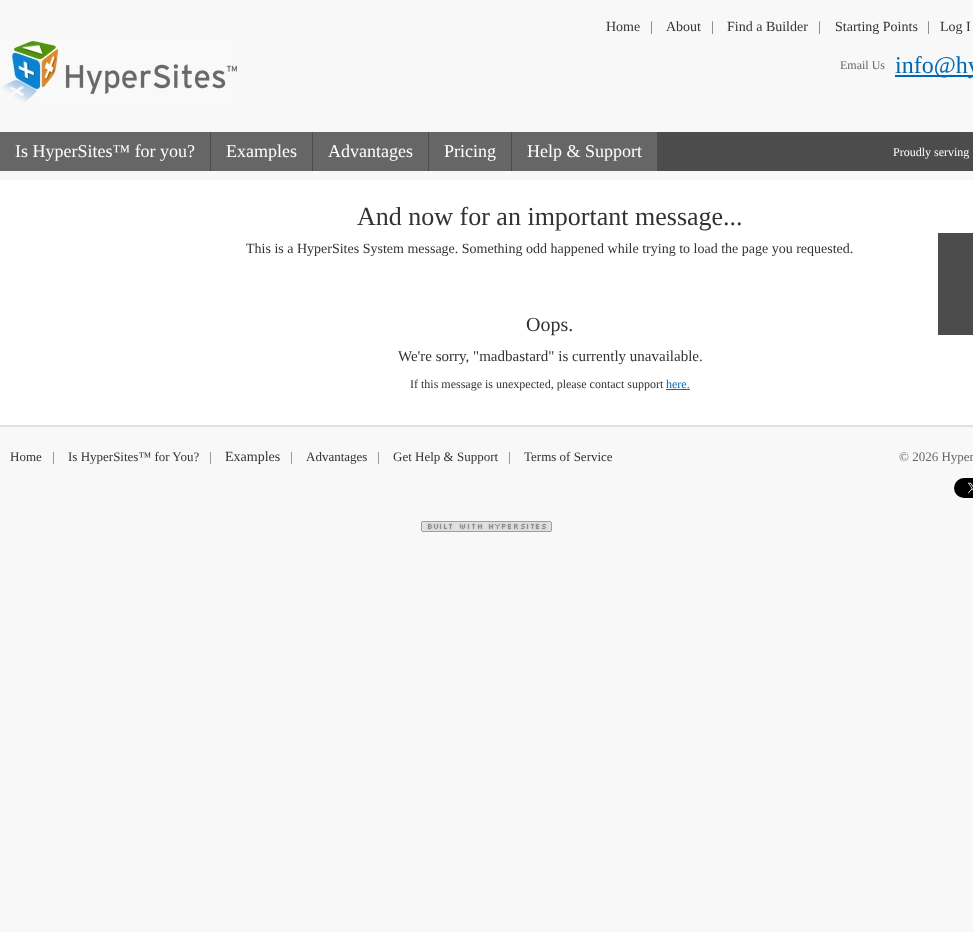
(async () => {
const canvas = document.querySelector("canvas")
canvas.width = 973
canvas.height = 932
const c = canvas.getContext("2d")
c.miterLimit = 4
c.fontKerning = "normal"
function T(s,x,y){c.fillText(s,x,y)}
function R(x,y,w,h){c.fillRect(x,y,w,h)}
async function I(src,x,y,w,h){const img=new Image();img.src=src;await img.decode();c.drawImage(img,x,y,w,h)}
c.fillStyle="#f8f8f8"
R(0,0,973,932)
await I("1.png",1,40,236,63)
c.font="14px Liberation Serif"
c.fillStyle="#333"
T("Home",606,31)
c.fillStyle="#666"
T("|",650,31)
c.fillStyle="#333"
T("About",666,31)
c.fillStyle="#666"
T("|",711,31)
c.fillStyle="#333"
T("Find a Builder",727,31)
c.fillStyle="#666"
T("|",818,31)
c.fillStyle="#333"
T("Starting Points",835,31)
c.fillStyle="#666"
T("|",927,31)
c.fillStyle="#333"
T("Log I",940,31)
c.font="12px Liberation Serif"
c.fillStyle="#666"
T("Email Us",840,69)
c.fillStyle="#0068b3"
R(895,75,78,2)
c.font="24px Liberation Serif"
T("info@hy",895,73)
c.fillStyle="#4c4c4c"
R(210,132,763,39)
c.fillStyle="#666"
R(0,132,210,39)
c.font="18px Liberation Serif"
c.fillStyle="#fff"
T("Is HyperSites™ for you?",15,157)
c.fillStyle="#666"
R(211,132,101,39)
c.fillStyle="#fff"
T("Examples",226,157)
c.fillStyle="#666"
R(313,132,115,39)
c.fillStyle="#fff"
T("Advantages",328,157)
c.fillStyle="#666"
R(429,132,82,39)
c.fillStyle="#fff"
T("Pricing",444,157)
c.fillStyle="#666"
R(512,132,145,39)
c.fillStyle="#fff"
T("Help & Support",527,157)
c.font="12px Liberation Serif"
T("Proudly serving",893,156)
R(0,180,973,245)
c.font="26px Liberation Serif"
c.fillStyle="#333"
T("And now for an important message...",357,225)
c.font="14px Liberation Serif"
T("This is a HyperSites System message. Something odd happened while trying to load the page you requested.",246,253)
c.font="20px Liberation Serif"
T("Oops.",526,331)
c.font="15px Liberation Serif"
T("We're sorry, \"madbastard\" is currently unavailable.",398,361)
c.font="12px Liberation Serif"
T("If this message is unexpected, please contact support",410,388)
c.fillStyle="#0068b3"
R(666,389,24,1)
T("here.",666,388)
c.fillStyle="#e0e0e0"
R(0,425,973,2)
c.font="13px Liberation Serif"
c.fillStyle="#333"
T("Home",10,461)
c.fillStyle="#666"
T("|",52,461)
c.fillStyle="#333"
T("Is HyperSites™ for You?",68,461)
c.fillStyle="#666"
T("|",209,461)
c.font="14px Liberation Serif"
c.fillStyle="#333"
T("Examples",225,461)
c.font="13px Liberation Serif"
c.fillStyle="#666"
T("|",290,461)
c.fillStyle="#333"
T("Advantages",306,461)
c.fillStyle="#666"
T("|",377,461)
c.fillStyle="#333"
T("Get Help & Support",393,461)
c.fillStyle="#666"
T("|",508,461)
c.fillStyle="#333"
T("Terms of Service",524,461)
c.fillStyle="#666"
T("© 2026 Hyper",899,461)
await I("2.png",954,478,19,20)
await I("3.png",421,521,131,11)
c.fillStyle="#4c4c4c"
R(938,233,35,102)
})()
